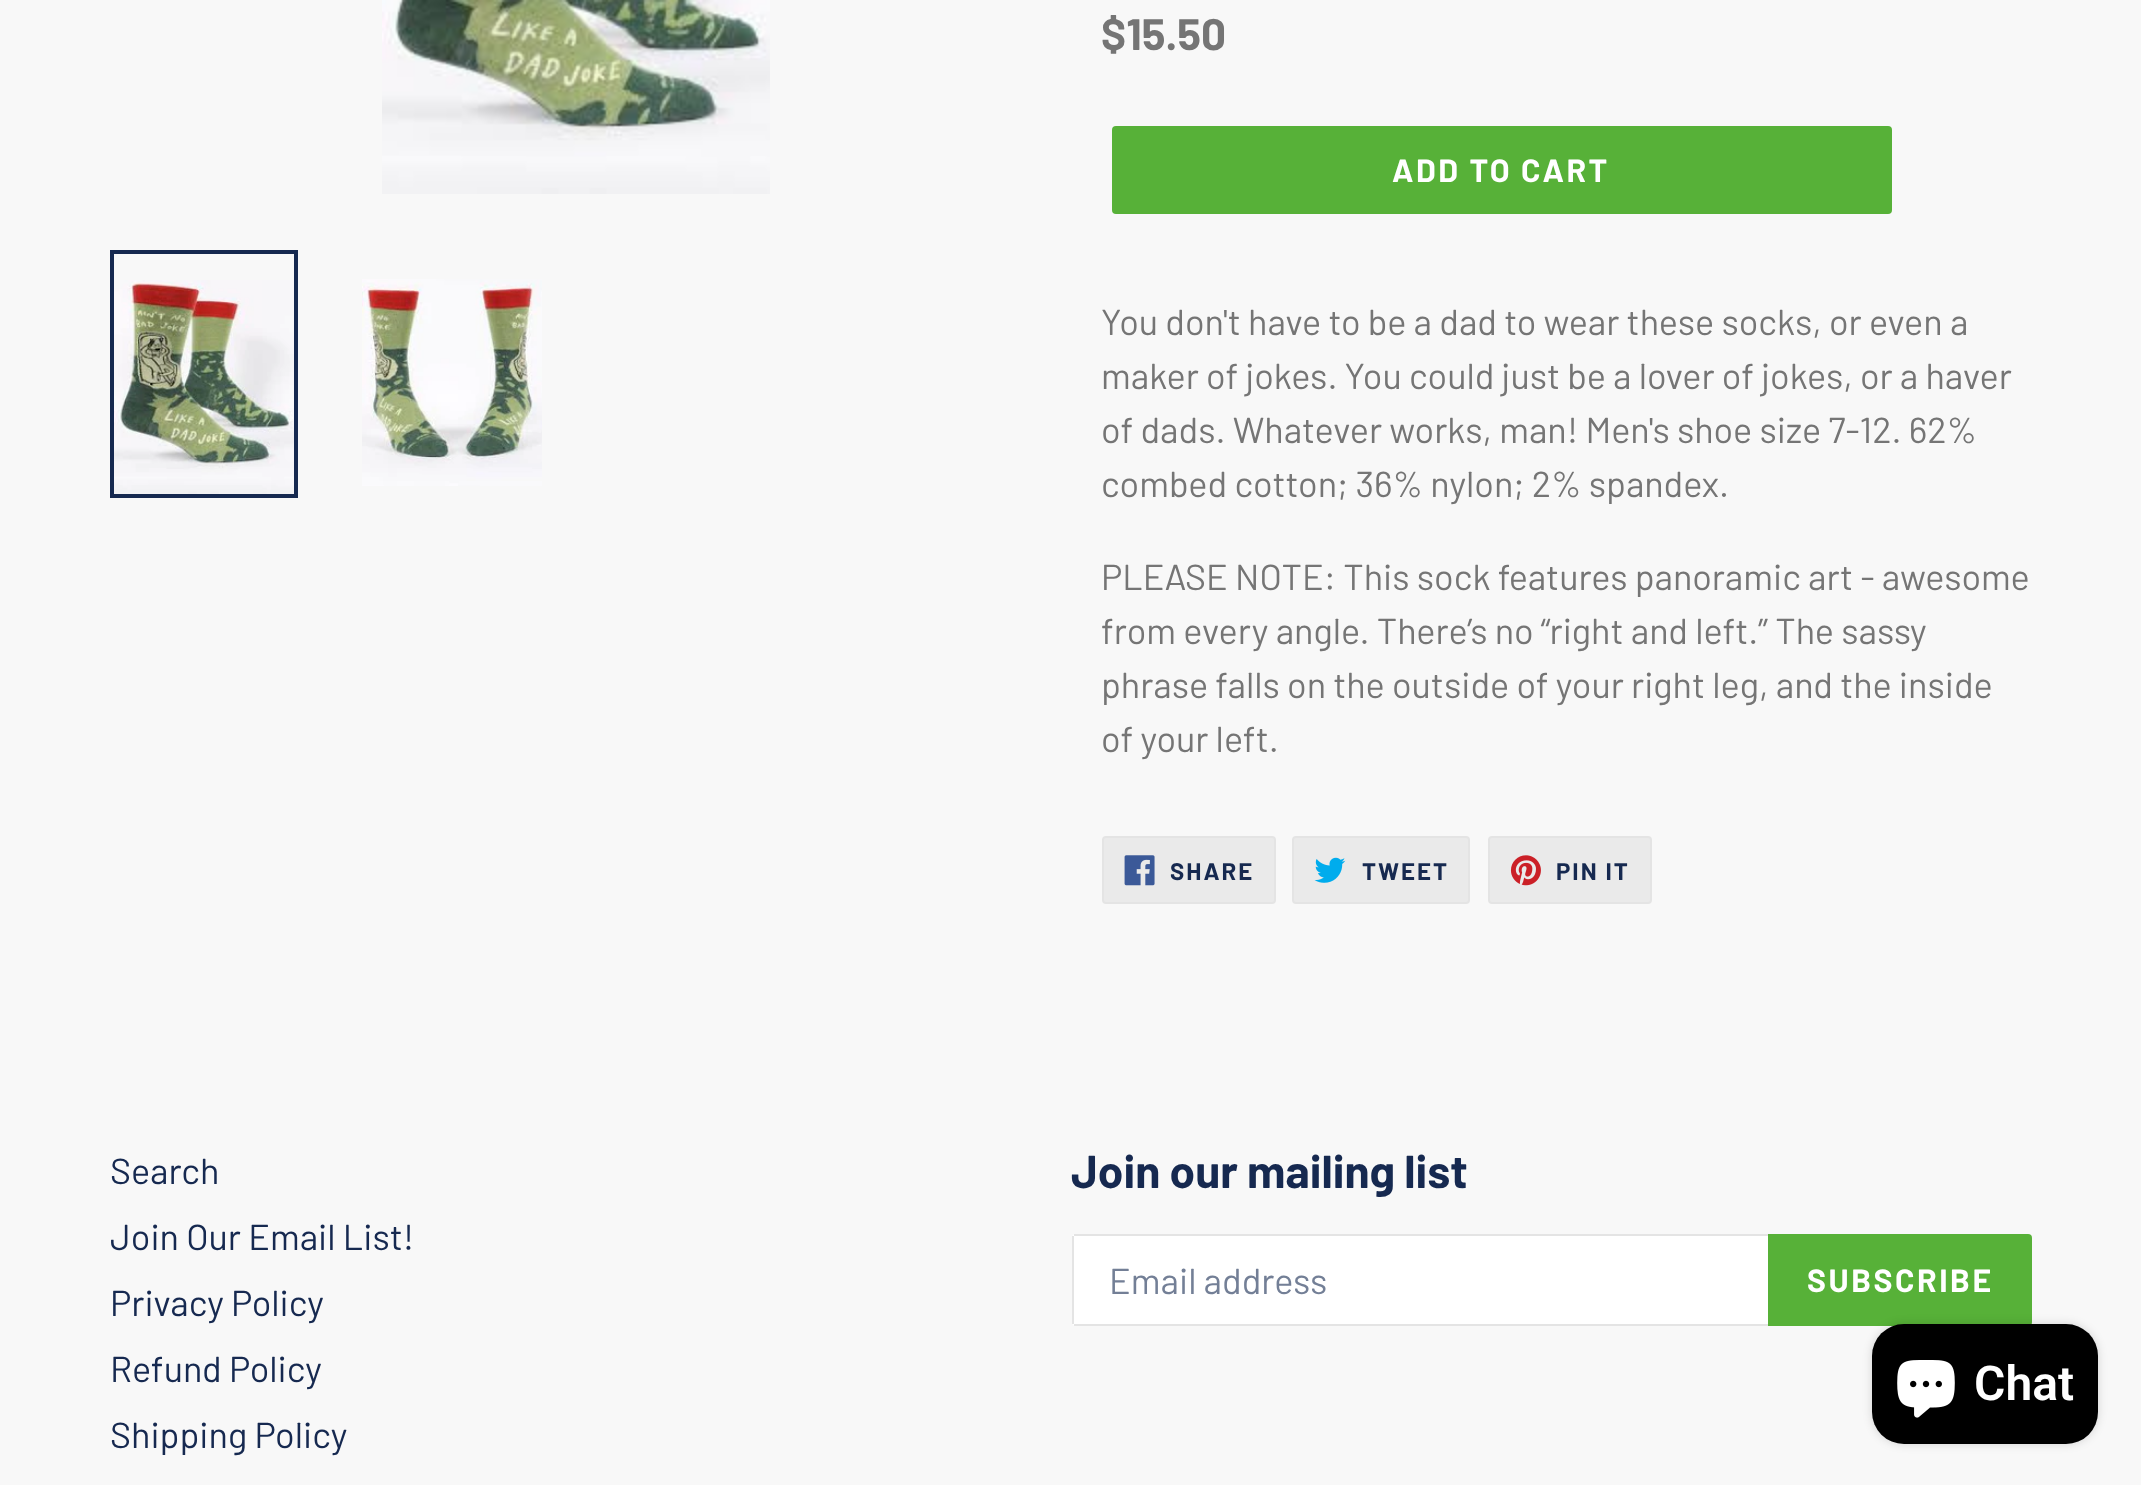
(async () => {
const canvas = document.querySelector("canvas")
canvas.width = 2141
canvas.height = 1485
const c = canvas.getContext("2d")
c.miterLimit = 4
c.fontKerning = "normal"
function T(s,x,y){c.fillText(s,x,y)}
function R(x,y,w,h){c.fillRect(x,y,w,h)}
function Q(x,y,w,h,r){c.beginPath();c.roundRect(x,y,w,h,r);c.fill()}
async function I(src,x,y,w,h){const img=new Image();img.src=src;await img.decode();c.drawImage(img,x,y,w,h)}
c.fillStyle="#f8f8f8"
R(0,0,2141,1485)
await I("1.png",382,0,388,194)
c.strokeStyle="#162950"
c.lineWidth=4
c.strokeRect(112,252,184,244)
await I("2.png",114,280,180,214)
await I("3.png",362,279,180,207)
c.font="bold 44px Barlow"
c.fillStyle="#757575"
T("$15.50",1101,50)
c.fillStyle="#57b138"
Q(1112,126,780,88,4)
c.letterSpacing="2.5px"
c.font="bold 32px Barlow"
c.fillStyle="#fff"
T("ADD TO CART",1392,182)
c.letterSpacing="0px"
c.font="36px Barlow"
c.fillStyle="#757575"
T("You don't have to be a dad to wear these socks, or even a",1101,335)
T("maker of jokes. You could just be a lover of jokes, or a haver",1101,389)
T("of dads. Whatever works, man! Men's shoe size 7-12. 62%",1101,443)
T("combed cotton; 36% nylon; 2% spandex.",1101,497)
T("PLEASE NOTE: This sock features panoramic art - awesome",1101,590)
T("from every angle. There’s no “right and left.” The sassy",1101,644)
T("phrase falls on the outside of your right leg, and the inside",1101,698)
T("of your left.",1101,752)
c.fillStyle="#eaeaea"
c.beginPath()
c.roundRect(1103,837,172,66,3)
c.fill()
c.strokeStyle="#e4e4e4"
c.lineWidth=2
c.stroke()
await I("4.png",1124,855,31,31)
c.letterSpacing="2px"
c.font="bold 24px Barlow"
c.fillStyle="#162950"
T("SHARE",1170,880)
c.fillStyle="#eaeaea"
c.beginPath()
c.roundRect(1293,837,176,66,3)
c.fill()
c.stroke()
await I("5.png",1314,857,32,26)
c.fillStyle="#162950"
T("TWEET",1362,880)
c.fillStyle="#eaeaea"
c.beginPath()
c.roundRect(1489,837,162,66,3)
c.fill()
c.stroke()
await I("6.png",1510,855,31,31)
c.fillStyle="#162950"
T("PIN IT",1556,880)
c.letterSpacing="0px"
c.font="36px Barlow"
T("Search",110,1184)
T("Join Our Email List!",110,1250)
T("Privacy Policy",110,1316)
T("Refund Policy",110,1382)
T("Shipping Policy",110,1448)
c.font="bold 46px Barlow"
T("Join our mailing list",1071,1188)
c.fillStyle="#fff"
c.beginPath()
c.roundRect(1072,1234,696,92,[4,0,0,4])
c.fill()
c.fillStyle="#e4e4e4"
R(1074,1234,694,2)
R(1074,1324,694,2)
R(1072,1236,2,88)
c.font="36px Barlow"
c.fillStyle="#737f96"
T("Email address",1109,1294)
c.fillStyle="#57b138"
c.beginPath()
c.roundRect(1768,1234,264,92,[0,4,4,0])
c.fill()
c.letterSpacing="2.5px"
c.font="bold 32px Barlow"
c.fillStyle="#fff"
T("SUBSCRIBE",1807,1292)
c.fillStyle="#00000026"
c.filter="blur(5px)"
c.beginPath()
c.roundRect(1872,1324,226,120,32)
c.fill()
c.filter="none"
c.fillStyle="#000"
Q(1872,1324,226,120,32)
await I("7.png",1897,1360,58,58)
c.letterSpacing="0px"
c.font="600 48px Roboto"
c.fillStyle="#fff"
T("Chat",1974,1400)
})()
